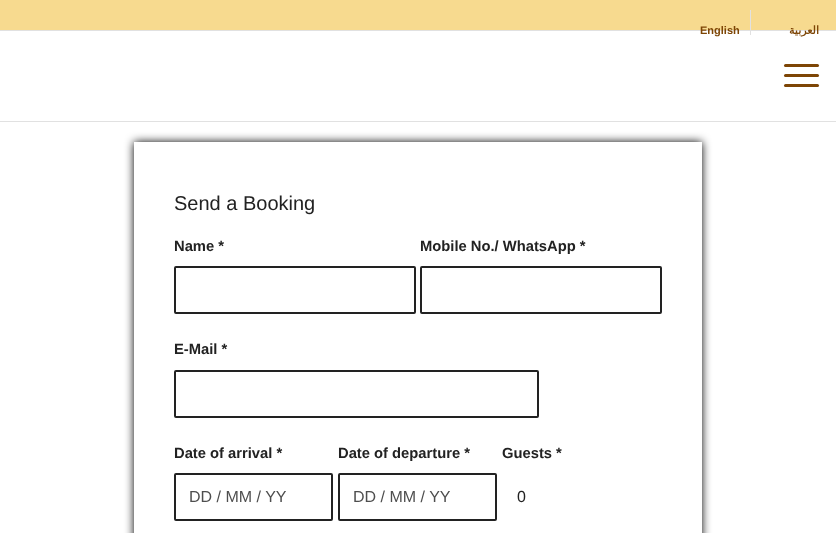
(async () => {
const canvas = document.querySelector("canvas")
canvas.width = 836
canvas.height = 533
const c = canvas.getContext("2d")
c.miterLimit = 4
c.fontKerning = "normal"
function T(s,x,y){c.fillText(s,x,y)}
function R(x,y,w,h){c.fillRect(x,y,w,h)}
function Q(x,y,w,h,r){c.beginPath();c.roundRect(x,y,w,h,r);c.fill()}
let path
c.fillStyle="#fff"
R(0,0,836,533)
c.fillStyle="#f7da8f"
R(0,0,836,30)
c.fillStyle="#e1e1e1"
R(0,30,836,1)
R(750,10,1,25)
c.font="bold 11px Liberation Sans"
c.fillStyle="#7d4505"
T("English",700,34)
c.direction="rtl"
c.font="bold 11px DejaVu Sans"
T("العربية",819,34)
c.fillStyle="#e1e1e1"
R(0,121,836,1)
c.fillStyle="#7d4505"
Q(784,74,35,3,1.5)
Q(784,64,35,3,1.5)
Q(784,84,35,3,1.5)
c.save()
path = new Path2D("M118 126h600v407h-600zm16 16h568v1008h-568z")
c.clip(path,"evenodd")
c.fillStyle="#000"
c.filter="blur(5px)"
c.beginPath()
c.rect(134,142,568,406)
c.fill()
c.filter="none"
c.restore()
c.direction="ltr"
c.font="20px Liberation Sans"
c.fillStyle="#222"
T("Send a Booking",174,210)
c.font="bold 14.75px Liberation Sans"
T("Name *",174,251)
c.beginPath()
c.roundRect(175,267,240,46,1)
c.strokeStyle="#222"
c.lineWidth=2
c.stroke()
T("Mobile No./ WhatsApp *",420,251)
c.beginPath()
c.roundRect(421,267,240,46,1)
c.stroke()
T("E-Mail *",174,354)
c.beginPath()
c.roundRect(175,371,363,46,1)
c.stroke()
T("Date of arrival *",174,458)
c.beginPath()
c.roundRect(175,474,157,46,1)
c.stroke()
c.font="16px Liberation Sans"
c.fillStyle="#4e4e4e"
T("DD / MM / YY",189,502)
c.font="bold 14.75px Liberation Sans"
c.fillStyle="#222"
T("Date of departure *",338,458)
c.beginPath()
c.roundRect(339,474,157,46,1)
c.stroke()
c.font="16px Liberation Sans"
c.fillStyle="#4e4e4e"
T("DD / MM / YY",353,502)
c.font="bold 14.75px Liberation Sans"
c.fillStyle="#222"
T("Guests *",502,458)
c.font="16px Liberation Sans"
T("0",517,502)
})()
